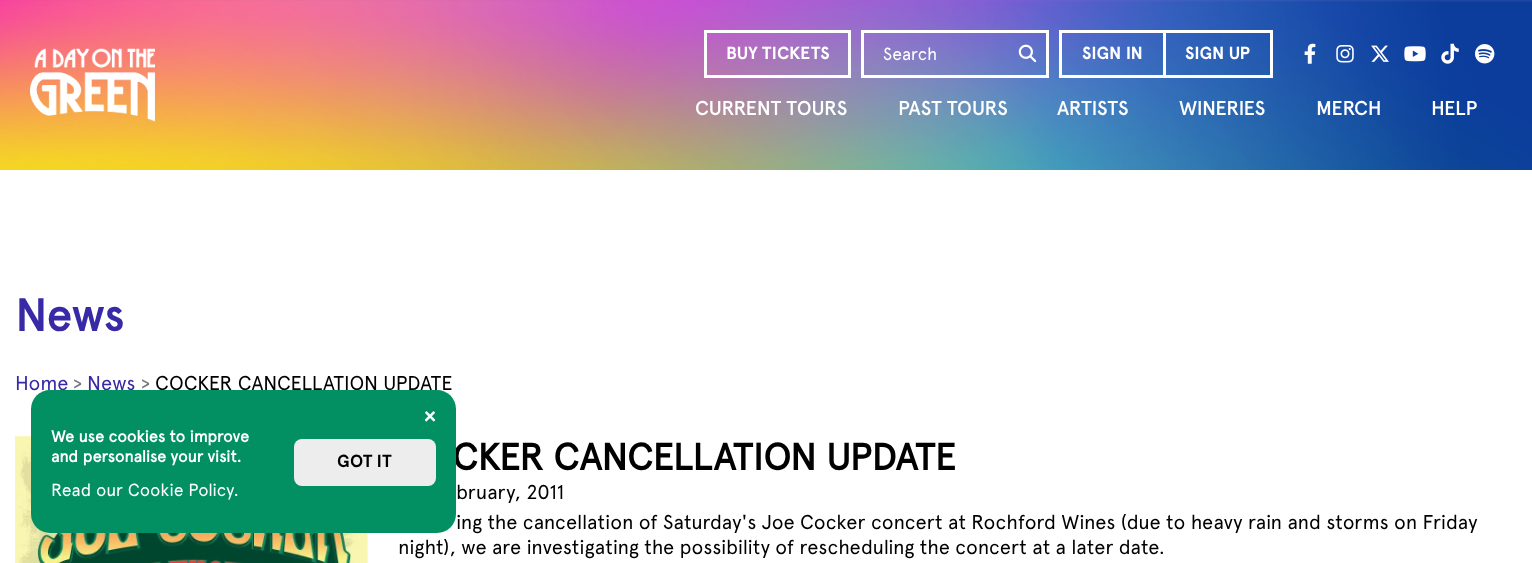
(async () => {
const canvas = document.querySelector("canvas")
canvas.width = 1532
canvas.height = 563
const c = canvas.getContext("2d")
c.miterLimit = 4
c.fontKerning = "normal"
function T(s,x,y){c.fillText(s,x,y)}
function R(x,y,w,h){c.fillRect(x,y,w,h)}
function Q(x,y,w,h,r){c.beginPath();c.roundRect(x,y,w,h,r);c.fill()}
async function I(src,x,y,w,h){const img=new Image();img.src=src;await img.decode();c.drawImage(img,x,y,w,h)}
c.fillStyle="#fff"
R(0,0,1532,563)
await I("1.png",0,0,1532,170)
await I("2.png",30,48,125,74)
c.strokeStyle="#fff"
c.lineWidth=3
c.strokeRect(705.5,31.5,144,45)
c.font="bold 17.5px 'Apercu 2'"
T("BUY TICKETS",726,59)
R(861,30,188,3)
R(861,75,150,3)
R(861,30,3,48)
c.font="17.5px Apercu"
T("Search",883,60)
R(1046,30,3,48)
R(1009,75,40,3)
await I("3.png",1018,44,19,19)
R(1059,30,104,3)
R(1059,75,104,3)
R(1059,30,3,48)
c.font="bold 17.5px 'Apercu 2'"
T("SIGN IN",1082,59)
c.strokeRect(1164.5,31.5,107,45)
T("SIGN UP",1185,59)
await I("4.png",1304,43,12,21)
await I("5.png",1336,45,18,18)
await I("6.png",1371,45,18,17)
await I("7.png",1404,46,22,16)
await I("8.png",1441,43,18,21)
await I("9.png",1475,44,20,20)
c.font="500 20px Apercu"
T("CURRENT TOURS",695,115)
T("PAST TOURS",898,115)
T("ARTISTS",1057,115)
T("WINERIES",1179,115)
T("MERCH",1316,115)
T("HELP",1431,115)
c.font="bold 45px Apercu"
c.fillStyle="#3829a6"
T("News",15,331)
c.font="20px Apercu"
T("Home",15,390)
c.fillStyle="#6c757d"
T(">",73,390)
c.fillStyle="#3829a6"
T("News",87,390)
c.fillStyle="#6c757d"
T(">",141,390)
c.fillStyle="#000"
T("COCKER CANCELLATION UPDATE",155,390)
await I("10.png",15,436,353,127)
c.font="bold 37.5px Apercu"
T("CKER CANCELLATION UPDATE",452,470)
c.font="20px Apercu"
T("bruary, 2011",456,499)
T("ing the cancellation of Saturday's Joe Cocker concert at Rochford Wines (due to heavy rain and storms on Friday",456,529)
T("night), we are investigating the possibility of rescheduling the concert at a later date.",398,554)
c.fillStyle="#029062"
Q(31,390,425,143,19)
await I("11.png",424,411,12,11)
c.font="bold 16.25px Apercu"
c.fillStyle="#fff"
T("We use cookies to improve",51,442)
T("and personalise your visit.",51,462)
c.font="17.5px Apercu"
T("Read our Cookie Policy.",51,496)
c.fillStyle="#ededed"
Q(294,439,142,47,8)
c.font="bold 17.5px 'Apercu 2'"
c.fillStyle="#000"
T("GOT IT",337,467)
})()
